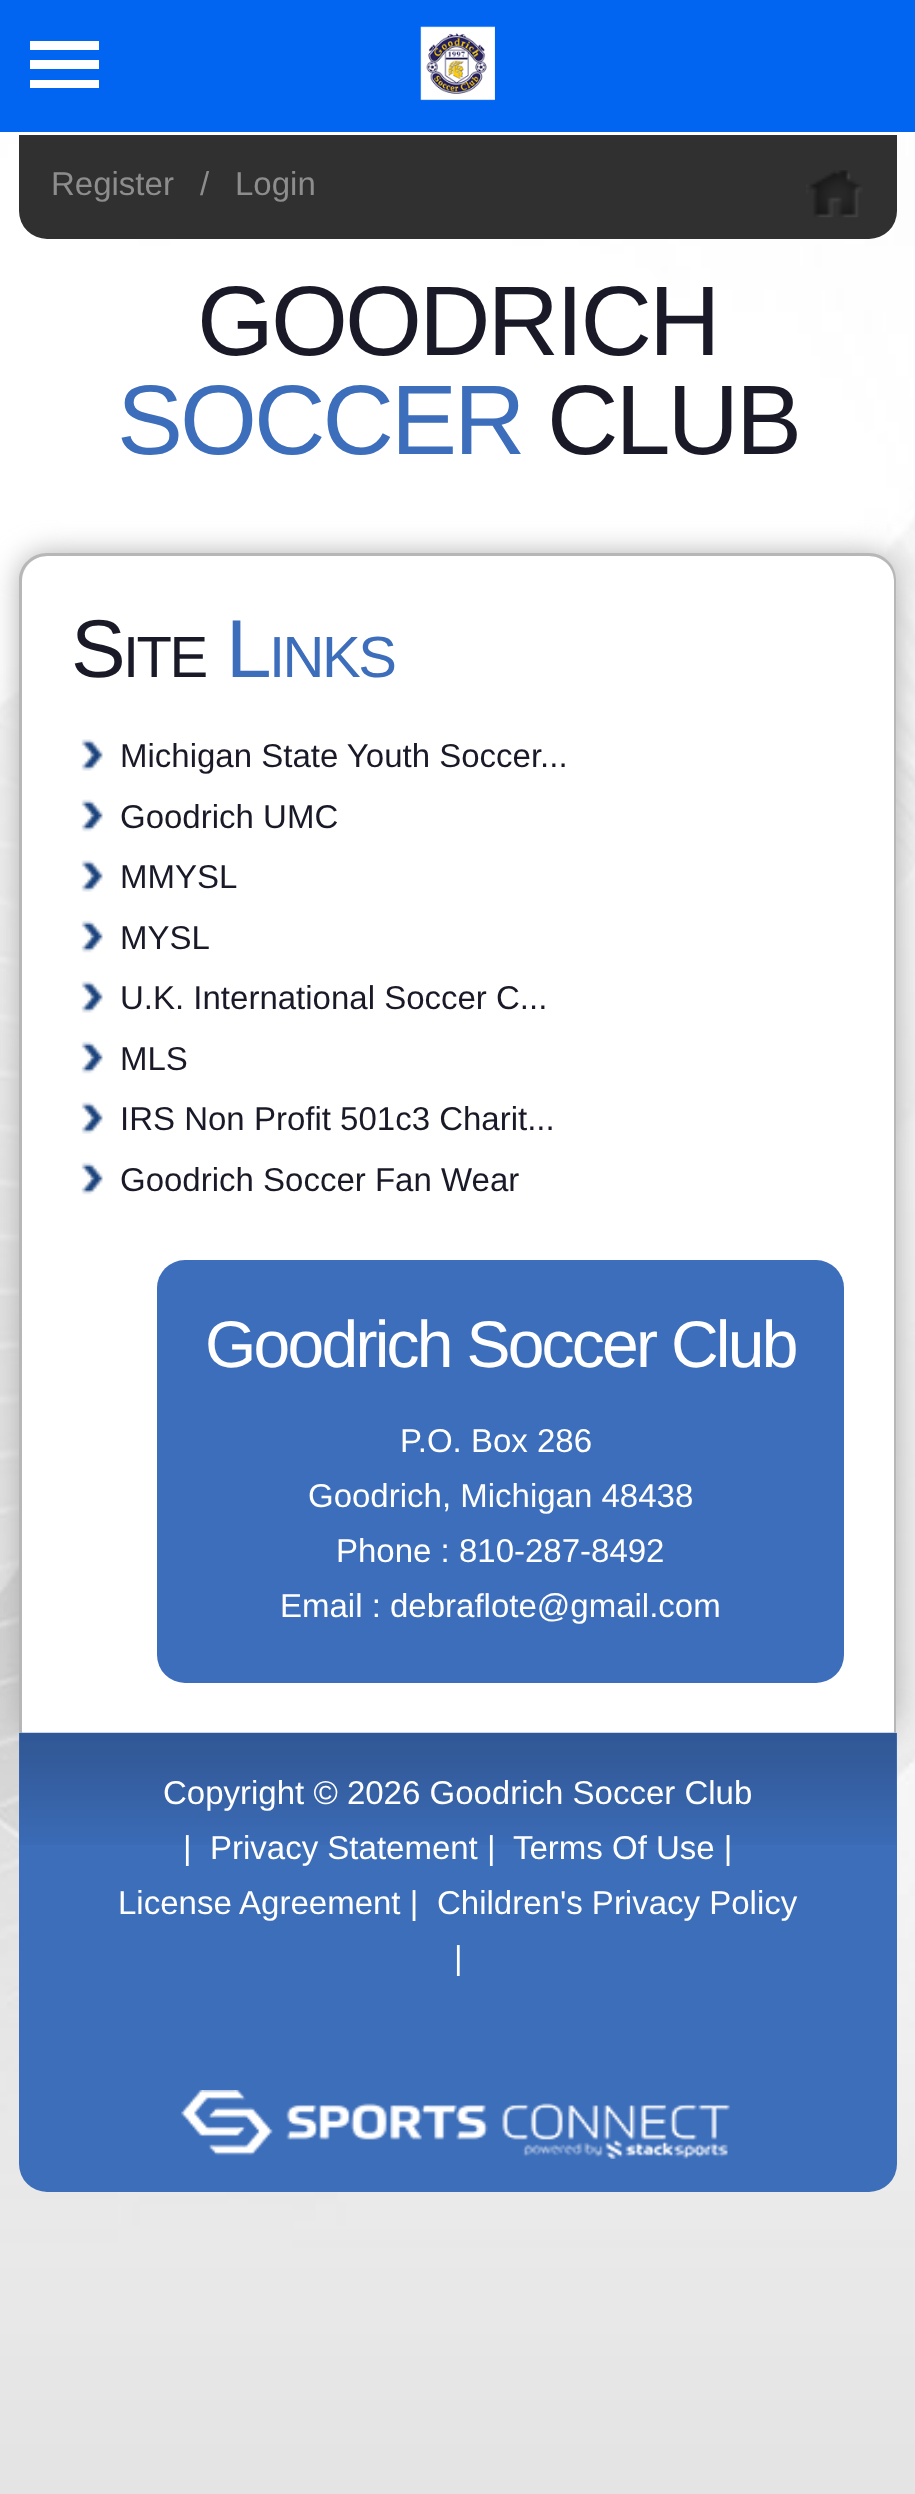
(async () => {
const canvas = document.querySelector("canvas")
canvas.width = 915
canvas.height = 2494
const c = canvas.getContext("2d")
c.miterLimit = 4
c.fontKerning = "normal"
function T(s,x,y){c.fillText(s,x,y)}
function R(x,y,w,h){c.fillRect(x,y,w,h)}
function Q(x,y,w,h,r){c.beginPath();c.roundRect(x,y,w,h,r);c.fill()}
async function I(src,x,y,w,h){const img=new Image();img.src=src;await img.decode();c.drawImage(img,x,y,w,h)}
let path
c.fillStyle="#fff"
R(0,0,915,2494)
c.fillStyle="#0165f1"
R(0,0,915,132)
c.fillStyle="#fff"
path = new Path2D("M30 41h69v9h-69zm0 19h69v9h-69zm0 20h69v8h-69z")
c.fill(path)
await I("1.png",420,26,75,75)
await I("2.png",0,135,915,2359)
c.fillStyle="#303030"
c.beginPath()
c.roundRect(19,135,878,104,[0,0,28,28])
c.fill()
c.font="33px Liberation Sans"
c.fillStyle="#8d8d8d"
T("Register",51,195)
T("/",200,195)
T("Login",235,195)
await I("3.png",806,170,57,48)
c.letterSpacing="-3px"
c.font="99px Liberation Sans"
c.fillStyle="#191928"
T("GOODRICH",197,355)
c.fillStyle="#3d6ebb"
T("SOCCER",117,454)
c.fillStyle="#191928"
T("CLUB",547,454)
c.fillStyle="#b2b2b2"
c.filter="blur(14px)"
c.beginPath()
c.roundRect(19,553,878,1180,28)
c.fill()
c.filter="none"
c.fillStyle="#fff"
c.beginPath()
c.roundRect(22,556,872,1177,[25,25,0,0])
c.fill()
c.fillStyle="#b7b7b7"
path = new Path2D("M47 553h822c15 0 27 12 27 27v1152h-877v-1152c0-15 13-27 28-27zm0 3h822c14 0 25 11 25 24v1152h-872v-1152c0-13 11-24 25-24z")
c.fill(path,"evenodd")
c.letterSpacing="-2.5px"
c.font="82px Liberation Sans"
c.fillStyle="#191928"
T("S",71,677)
c.font="58px Liberation Sans"
T("ITE",123,677)
c.font="82px Liberation Sans"
c.fillStyle="#3d6ebb"
T("L",226,677)
c.font="58px Liberation Sans"
T("INKS",269,677)
await I("4.png",81,739,22,32)
c.letterSpacing="0px"
c.font="33px Liberation Sans"
c.fillStyle="#191928"
T("Michigan State Youth Soccer...",120,767)
await I("5.png",81,799,22,33)
T("Goodrich UMC",120,828)
await I("4.png",81,860,22,32)
T("MMYSL",120,888)
await I("5.png",81,920,22,33)
T("MYSL",120,949)
await I("4.png",81,981,22,32)
T("U.K. International Soccer C...",120,1009)
await I("5.png",81,1041,22,33)
T("MLS",120,1070)
await I("4.png",81,1102,22,32)
T("IRS Non Profit 501c3 Charit...",120,1130)
await I("5.png",81,1162,22,33)
T("Goodrich Soccer Fan Wear",120,1191)
c.fillStyle="#3d6ebb"
Q(157,1260,687,423,28)
c.letterSpacing="-2.75px"
c.font="66px Liberation Sans"
c.fillStyle="#fff"
T("Goodrich Soccer Club",205,1367)
c.letterSpacing="0px"
c.font="33px Liberation Sans"
T("P.O. Box 286",400,1452)
T("Goodrich, Michigan 48438",308,1507)
T("Phone : 810-287-8492",336,1562)
T("Email : debraflote@gmail.com",280,1617)
c.fillStyle="#3d6eba"
c.beginPath()
c.roundRect(19,1733,878,459,[0,0,28,28])
c.fill()
await I("6.png",19,1732,878,113)
c.fillStyle="#fff"
T("Copyright © 2026 Goodrich Soccer Club",163,1804)
T("|",183,1859)
T("Privacy Statement |",210,1859)
T("Terms Of Use |",513,1859)
T("License Agreement |",118,1914)
T("Children's Privacy Policy",437,1914)
T("|",454,1969)
await I("7.png",181,2090,549,69)
})()
